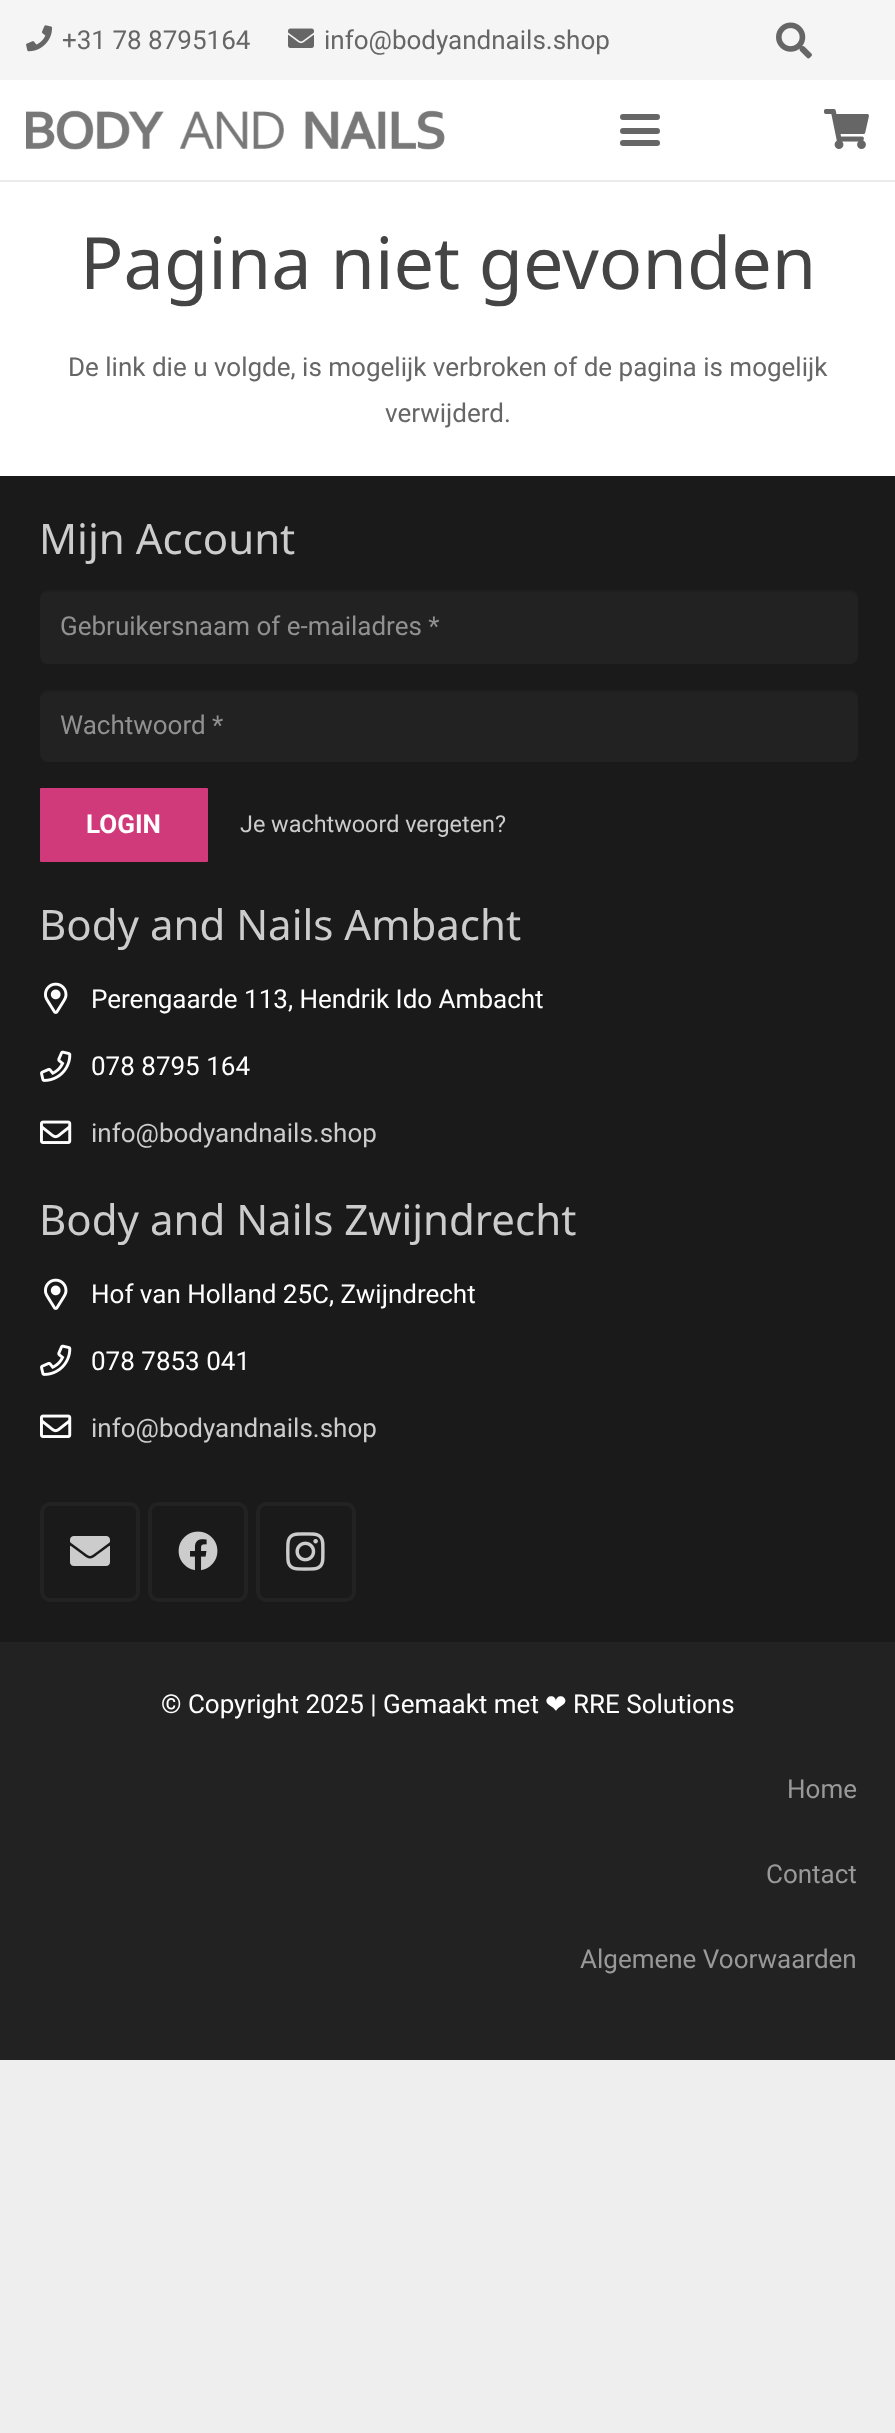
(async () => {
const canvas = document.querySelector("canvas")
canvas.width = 895
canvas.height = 2433
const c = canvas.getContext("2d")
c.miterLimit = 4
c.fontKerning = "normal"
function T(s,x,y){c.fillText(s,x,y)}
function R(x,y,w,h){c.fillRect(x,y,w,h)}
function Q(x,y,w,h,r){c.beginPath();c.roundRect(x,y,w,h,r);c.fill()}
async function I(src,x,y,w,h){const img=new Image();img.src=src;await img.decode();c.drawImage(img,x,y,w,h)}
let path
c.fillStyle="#eee"
R(0,0,895,2433)
c.fillStyle="#fff"
R(0,80,895,396)
c.fillStyle="#f5f5f5"
R(0,0,895,80)
await I("1.png",26,25,26,27)
c.font="26px Roboto"
c.fillStyle="#666"
T("+31 78 8795164",62,49)
await I("2.png",288,28,26,20)
T("info@bodyandnails.shop",324,49)
await I("3.png",776,22,36,37)
c.fillStyle="#ebebeb"
R(0,180,895,2)
await I("4.png",26,110,419,40)
c.fillStyle="#666"
Q(620,128,40,6,3)
Q(620,114,40,6,3)
Q(620,140,40,6,3)
await I("5.png",824,109,45,40)
c.font="72px Noto Sans"
c.fillStyle="#444"
T("Pagina niet gevonden",80,289)
c.font="26px Roboto"
c.fillStyle="#666"
T("De link die u volgde, is mogelijk verbroken of de pagina is mogelijk",68,376)
T("verwijderd.",385,422)
c.fillStyle="#1a1a1a"
R(0,476,895,1166)
c.font="42px Noto Sans"
c.fillStyle="#ccc"
T("Mijn Account",39,554)
c.fillStyle="#222"
Q(40,590,818,74,8)
c.fillStyle="#1f1f1f"
path = new Path2D("M48 592h802c5 0 8 3 8 8v-2c0-4-4-8-8-8h-802c-4 0-8 4-8 8v2c0-5 3-8 8-8z")
c.fill(path)
c.font="26px Roboto"
c.fillStyle="#919191"
T("Gebruikersnaam of e-mailadres *",60,635)
c.fillStyle="#222"
Q(40,690,818,72,8)
c.fillStyle="#1f1f1f"
path = new Path2D("M48 692h802c5 0 8 3 8 8v-2c0-4-4-8-8-8h-802c-4 0-8 4-8 8v2c0-5 3-8 8-8z")
c.fill(path)
c.fillStyle="#919191"
T("Wachtwoord *",60,734)
c.fillStyle="#d13a7a"
Q(40,788,168,74,1)
c.font="bold 26px Roboto"
c.fillStyle="#fff"
T("LOGIN",86,833)
c.font="23.4px Roboto"
c.fillStyle="#ccc"
T("Je wachtwoord vergeten?",240,832)
c.font="42px Noto Sans"
T("Body and Nails Ambacht",39,940)
await I("6.png",44,982,24,32)
c.font="26px Roboto"
c.fillStyle="#fff"
T("Perengaarde 113, Hendrik Ido Ambacht",91,1008)
await I("7.png",40,1050,32,32)
T("078 8795 164",91,1075)
await I("8.png",40,1120,32,24)
c.fillStyle="#ccc"
T("info@bodyandnails.shop",91,1142)
c.font="42px Noto Sans"
T("Body and Nails Zwijndrecht",39,1235)
await I("6.png",44,1278,24,32)
c.font="26px Roboto"
c.fillStyle="#fff"
T("Hof van Holland 25C, Zwijndrecht",91,1303)
await I("7.png",40,1344,32,32)
T("078 7853 041",91,1370)
await I("8.png",40,1414,32,24)
c.fillStyle="#ccc"
T("info@bodyandnails.shop",91,1437)
c.beginPath()
c.roundRect(42,1504,96,96,8)
c.strokeStyle="#222"
c.lineWidth=4
c.stroke()
await I("9.png",70,1536,40,30)
c.beginPath()
c.roundRect(150,1504,96,96,8)
c.stroke()
await I("10.png",178,1531,40,40)
c.beginPath()
c.roundRect(258,1504,96,96,8)
c.stroke()
await I("11.png",286,1532,39,39)
c.fillStyle="#222"
R(0,1642,895,418)
c.fillStyle="#fff"
T("© Copyright 2025 | Gemaakt met",161,1713)
c.font="26px DejaVu Sans"
T("❤",545,1713)
c.font="26px Roboto"
T("RRE Solutions",573,1713)
c.fillStyle="#999"
T("Home",787,1798)
T("Contact",766,1883)
T("Algemene Voorwaarden",580,1968)
})()
